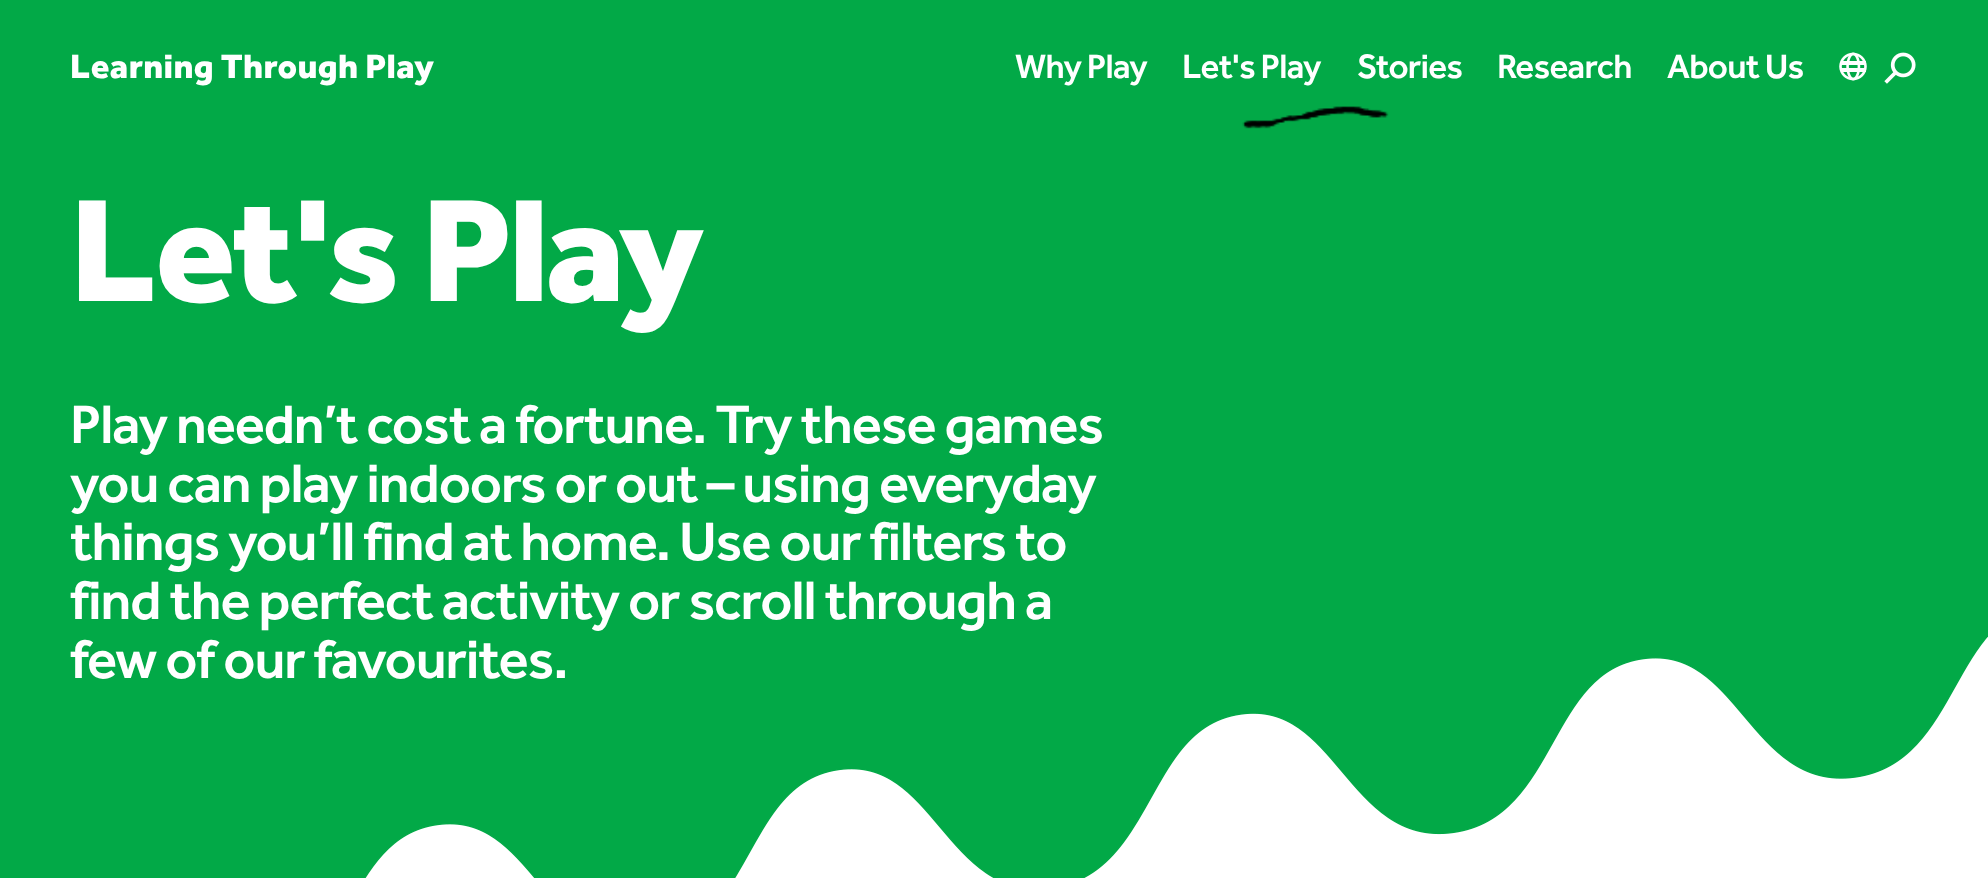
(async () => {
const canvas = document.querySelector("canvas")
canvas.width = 1988
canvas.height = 878
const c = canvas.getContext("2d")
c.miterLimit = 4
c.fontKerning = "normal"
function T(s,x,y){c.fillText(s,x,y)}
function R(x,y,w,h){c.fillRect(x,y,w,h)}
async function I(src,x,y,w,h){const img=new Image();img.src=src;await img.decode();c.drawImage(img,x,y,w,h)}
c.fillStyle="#02a947"
R(0,0,1988,878)
c.letterSpacing="0.35px"
c.font="900 35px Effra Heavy"
c.fillStyle="#fff"
T("Learning Through Play",70,78)
c.letterSpacing="-0.75px"
c.font="500 35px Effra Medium"
T("Why Play",1015,78)
T("Let's Play",1182,78)
T("Stories",1357,78)
T("Research",1497,78)
T("About Us",1667,78)
await I("1.png",1839,52,28,29)
await I("2.png",1884,52,32,32)
await I("3.png",1242,106,147,23)
c.letterSpacing="-3px"
c.font="900 150.5px Effra Heavy"
T("Let's Play",70,301)
c.letterSpacing="-1.1px"
c.font="500 56px Effra Medium"
T("Play needn’t cost a fortune. Try these games",70,443)
T("you can play indoors or out – using everyday",70,502)
T("things you’ll find at home. Use our filters to",70,560)
T("find the perfect activity or scroll through a",70,619)
R(364,637,1624,241)
await I("4.png",0,637,1988,241)
T("few of our favourites.",70,678)
})()
